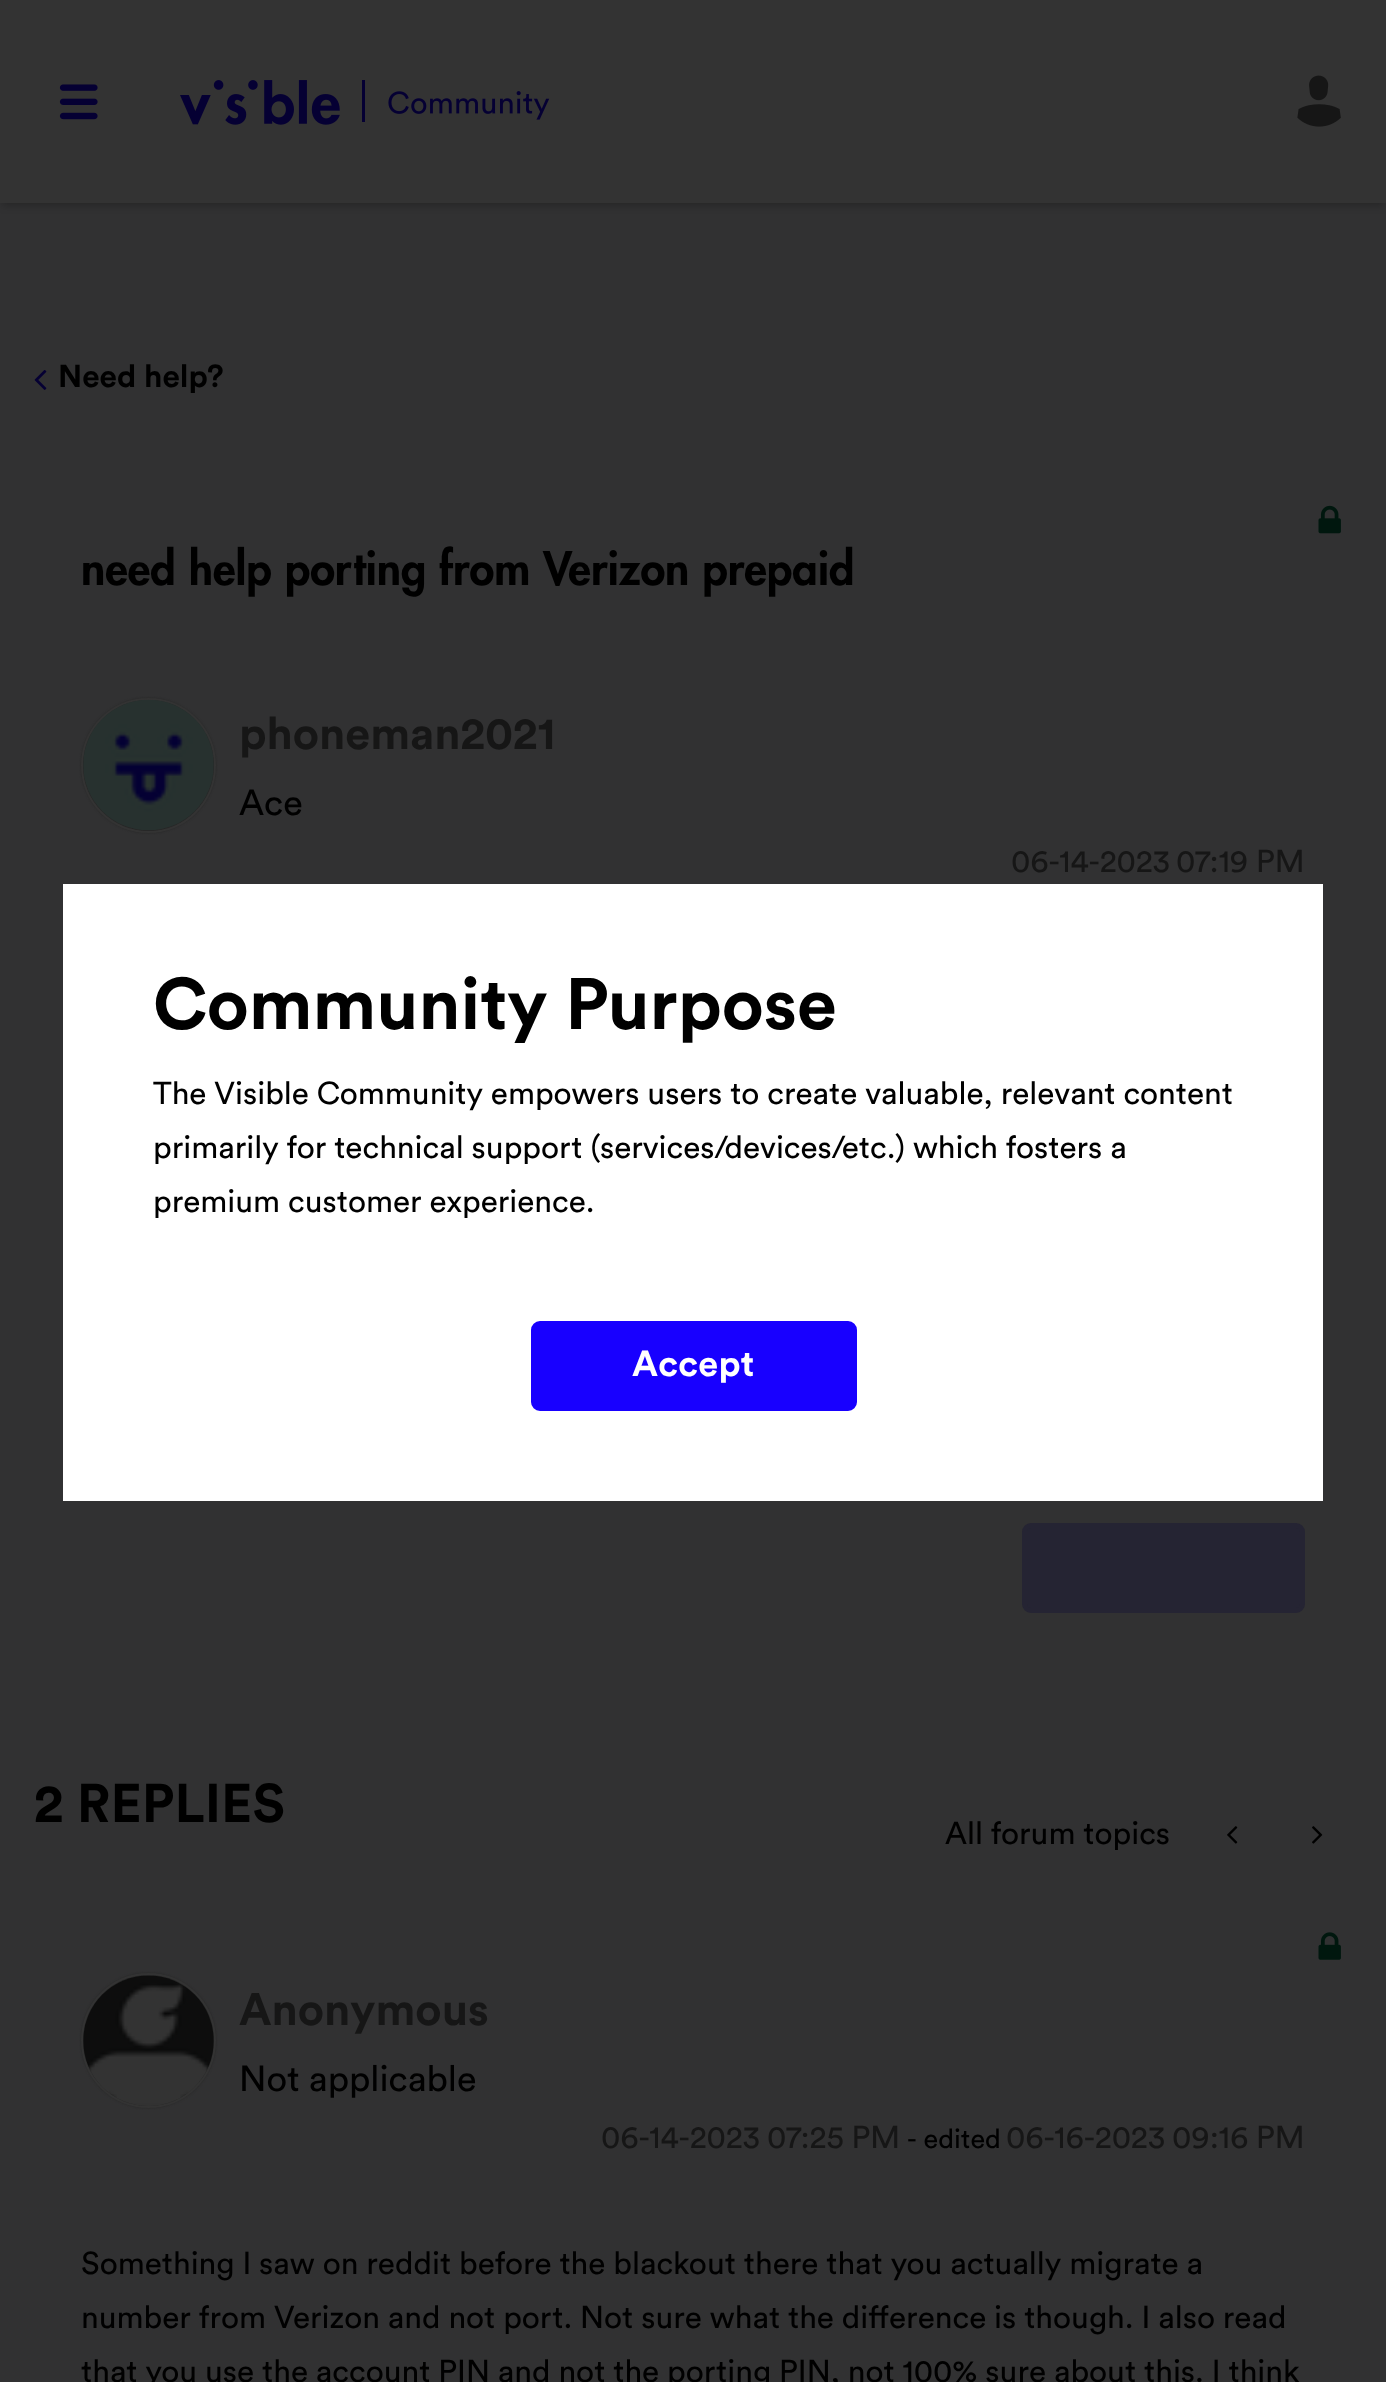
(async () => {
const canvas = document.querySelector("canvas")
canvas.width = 1386
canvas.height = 2382
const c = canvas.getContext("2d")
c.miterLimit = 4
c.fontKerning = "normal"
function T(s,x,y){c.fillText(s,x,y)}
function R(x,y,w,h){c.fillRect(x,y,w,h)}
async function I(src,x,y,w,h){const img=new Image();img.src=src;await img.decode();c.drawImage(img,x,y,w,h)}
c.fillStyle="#313132"
R(0,0,1386,2382)
c.fillStyle="#00000040"
c.filter="blur(4.5px)"
c.beginPath()
c.rect(2,7,1382,198)
c.fill()
c.filter="none"
c.fillStyle="#333"
R(0,0,1386,203)
await I("1.png",59,84,39,36)
await I("2.png",180,80,370,45)
await I("3.png",1297,75,44,52)
await I("4.png",34,370,13,20)
c.font="bold 31.5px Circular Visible"
c.fillStyle="#000"
T("Need help?",58,387)
await I("5.png",1318,505,23,29)
c.font="900 45px Futura"
T("need help porting from Verizon prepaid",81,585)
c.fillStyle="#272727"
c.filter="blur(1px)"
c.beginPath()
c.roundRect(81,698,135,135,67.5)
c.fill()
c.filter="none"
c.beginPath()
c.arc(148.5,765.5,66.5,0,7)
c.strokeStyle="#333"
c.lineWidth=2
c.stroke()
await I("6.png",83,699,131,132)
c.font="bold 45px Circular Visible"
c.fillStyle="#161616"
T("phoneman2021",239,749)
c.font="36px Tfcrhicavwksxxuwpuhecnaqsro"
c.fillStyle="#000"
T("Ace",239,815)
c.font="31.5px Tfcrhicavwksxxuwpuhecnaqsro"
c.fillStyle="#161616"
T("06-14-2023",1011,872)
T("07:19 PM",1176,872)
c.fillStyle="#252433"
c.beginPath()
c.roundRect(1024.5,1525.5,278,85,6.5)
c.fill()
c.strokeStyle="#252433"
c.lineWidth=5
c.stroke()
c.font="bold 54px Circular Visible"
c.fillStyle="#000"
T("2 REPLIES",34,1822)
c.font="31.5px Tfcrhicavwksxxuwpuhecnaqsro"
T("All forum topics",945,1844)
await I("7.png",1227,1826,11,18)
await I("8.png",1312,1826,11,18)
await I("9.png",1318,1932,23,28)
c.fillStyle="#272727"
c.filter="blur(1px)"
c.beginPath()
c.roundRect(81,1973,135,135,67.5)
c.fill()
c.filter="none"
c.beginPath()
c.arc(148.5,2040.5,66.5,0,7)
c.strokeStyle="#333"
c.lineWidth=2
c.stroke()
await I("10.png",83,1975,131,131)
c.font="bold 45px Circular Visible"
c.fillStyle="#161616"
T("Anonymous",239,2025)
c.font="36px Tfcrhicavwksxxuwpuhecnaqsro"
c.fillStyle="#000"
T("Not applicable",239,2091)
c.font="31.5px Tfcrhicavwksxxuwpuhecnaqsro"
c.fillStyle="#161616"
T("06-14-2023",601,2148)
T("07:25 PM",767,2148)
c.font="27px Tfcrhicavwksxxuwpuhecnaqsro"
c.fillStyle="#000"
T("- edited",907,2148)
c.font="31.5px Tfcrhicavwksxxuwpuhecnaqsro"
c.fillStyle="#161616"
T("06-16-2023",1006,2148)
T("09:16 PM",1172,2148)
c.fillStyle="#000"
T("Something I saw on reddit before the blackout there that you actually migrate a",81,2274)
T("number from Verizon and not port. Not sure what the difference is though. I also read",81,2328)
T("that you use the account PIN and not the porting PIN, not 100% sure about this. I think",81,2382)
c.fillStyle="#fff"
R(63,884,1260,617)
c.font="bold 72px Circular Visible"
c.fillStyle="#000"
T("Community Purpose",153,1029)
c.font="31.5px Tfcrhicavwksxxuwpuhecnaqsro"
T("The Visible Community empowers users to create valuable, relevant content",153,1104)
T("primarily for technical support (services/devices/etc.) which fosters a",153,1158)
T("premium customer experience.",153,1212)
c.fillStyle="#1800ff"
c.beginPath()
c.roundRect(533.5,1323.5,321,85,6.5)
c.fill()
c.strokeStyle="#1800ff"
c.lineWidth=5
c.stroke()
c.letterSpacing="0.25px"
c.font="bold 36px Circular Visible"
c.fillStyle="#fff"
T("Accept",632,1376)
})()
